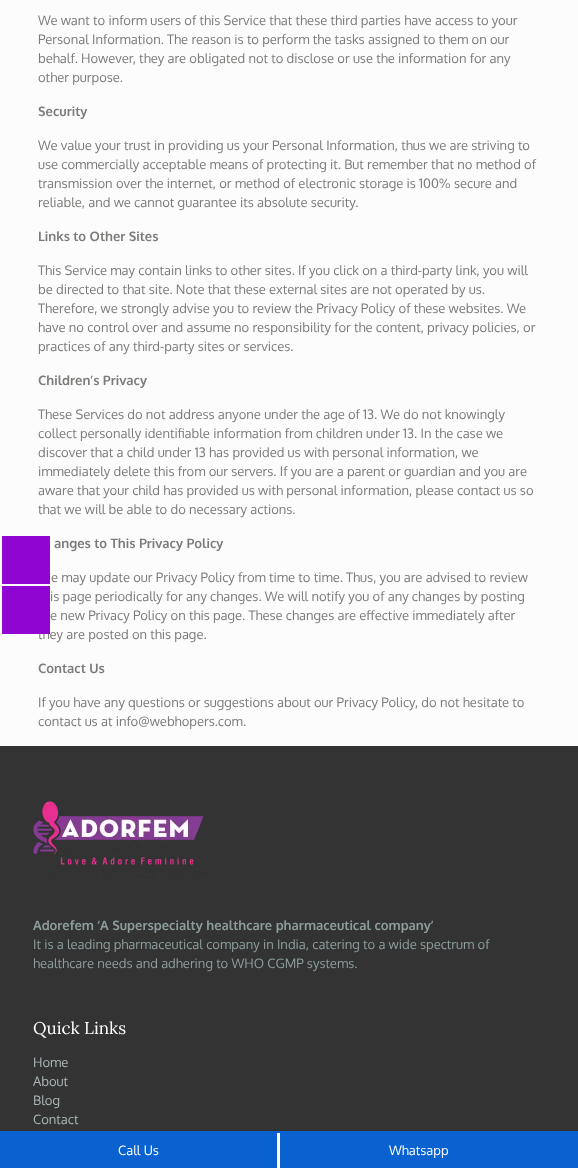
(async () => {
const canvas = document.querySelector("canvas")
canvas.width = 578
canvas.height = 1168
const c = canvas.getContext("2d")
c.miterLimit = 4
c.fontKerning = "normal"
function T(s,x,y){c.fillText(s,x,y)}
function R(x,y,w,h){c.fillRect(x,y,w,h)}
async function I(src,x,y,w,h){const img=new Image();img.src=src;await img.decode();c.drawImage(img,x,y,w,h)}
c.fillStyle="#fcfcfc"
R(0,0,578,1168)
c.fillStyle="#8f06d3"
R(2,536,48,48)
c.font="13px Oxygen"
c.fillStyle="#7c7b79"
T("they are posted on this page.",38,639)
c.fillStyle="#8f06d3"
R(2,586,48,48)
c.fillStyle="#7c7b79"
T("We want to inform users of this Service that these third parties have access to your",38,25)
T("Personal Information. The reason is to perform the tasks assigned to them on our",38,44)
T("behalf. However, they are obligated not to disclose or use the information for any",38,63)
T("other purpose.",38,82)
c.font="bold 13px Oxygen"
T("Security",38,116)
c.font="13px Oxygen"
T("We value your trust in providing us your Personal Information, thus we are striving to",38,150)
T("use commercially acceptable means of protecting it. But remember that no method of",38,169)
T("transmission over the internet, or method of electronic storage is 100% secure and",38,188)
T("reliable, and we cannot guarantee its absolute security.",38,207)
c.font="bold 13px Oxygen"
T("Links to Other Sites",38,241)
c.font="13px Oxygen"
T("This Service may contain links to other sites. If you click on a third-party link, you will",38,275)
T("be directed to that site. Note that these external sites are not operated by us.",38,294)
T("Therefore, we strongly advise you to review the Privacy Policy of these websites. We",38,313)
T("have no control over and assume no responsibility for the content, privacy policies, or",38,332)
T("practices of any third-party sites or services.",38,351)
c.font="bold 13px Oxygen"
T("Children’s Privacy",38,385)
c.font="13px Oxygen"
T("These Services do not address anyone under the age of 13. We do not knowingly",38,419)
T("collect personally identifiable information from children under 13. In the case we",38,438)
T("discover that a child under 13 has provided us with personal information, we",38,457)
T("immediately delete this from our servers. If you are a parent or guardian and you are",38,476)
T("aware that your child has provided us with personal information, please contact us so",38,495)
T("that we will be able to do necessary actions.",38,514)
c.font="bold 13px Oxygen"
T("anges to This Privacy Policy",54,548)
c.font="13px Oxygen"
T("e may update our Privacy Policy from time to time. Thus, you are advised to review",51,582)
T("is page periodically for any changes. We will notify you of any changes by posting",50,601)
T("e new Privacy Policy on this page. These changes are effective immediately after",50,620)
c.font="bold 13px Oxygen"
T("Contact Us",38,673)
c.font="13px Oxygen"
T("If you have any questions or suggestions about our Privacy Policy, do not hesitate to",38,707)
T("contact us at info@webhopers.com.",38,726)
c.fillStyle="#333"
R(0,746,578,385)
await I("1.png",33,801,177,77)
c.font="bold 13px Oxygen"
c.fillStyle="#8e9d9d"
T("Adorefem ‘A Superspecialty healthcare pharmaceutical company’",33,930)
c.font="13px Oxygen"
T("It is a leading pharmaceutical company in India, catering to a wide spectrum of",33,949)
T("healthcare needs and adhering to WHO CGMP systems.",33,968)
c.font="17px Lora"
c.fillStyle="#fff"
T("Quick Links",33,1034)
c.font="13px Oxygen"
c.fillStyle="#abb7b7"
T("Home",33,1067)
T("About",33,1086)
T("Blog",33,1105)
T("Contact",33,1124)
c.fillStyle="#0a62d0"
R(0,1131,578,37)
c.fillStyle="#fff"
R(277,1133,3,35)
T("Call Us",118,1155)
T("Whatsapp",389,1155)
})()
